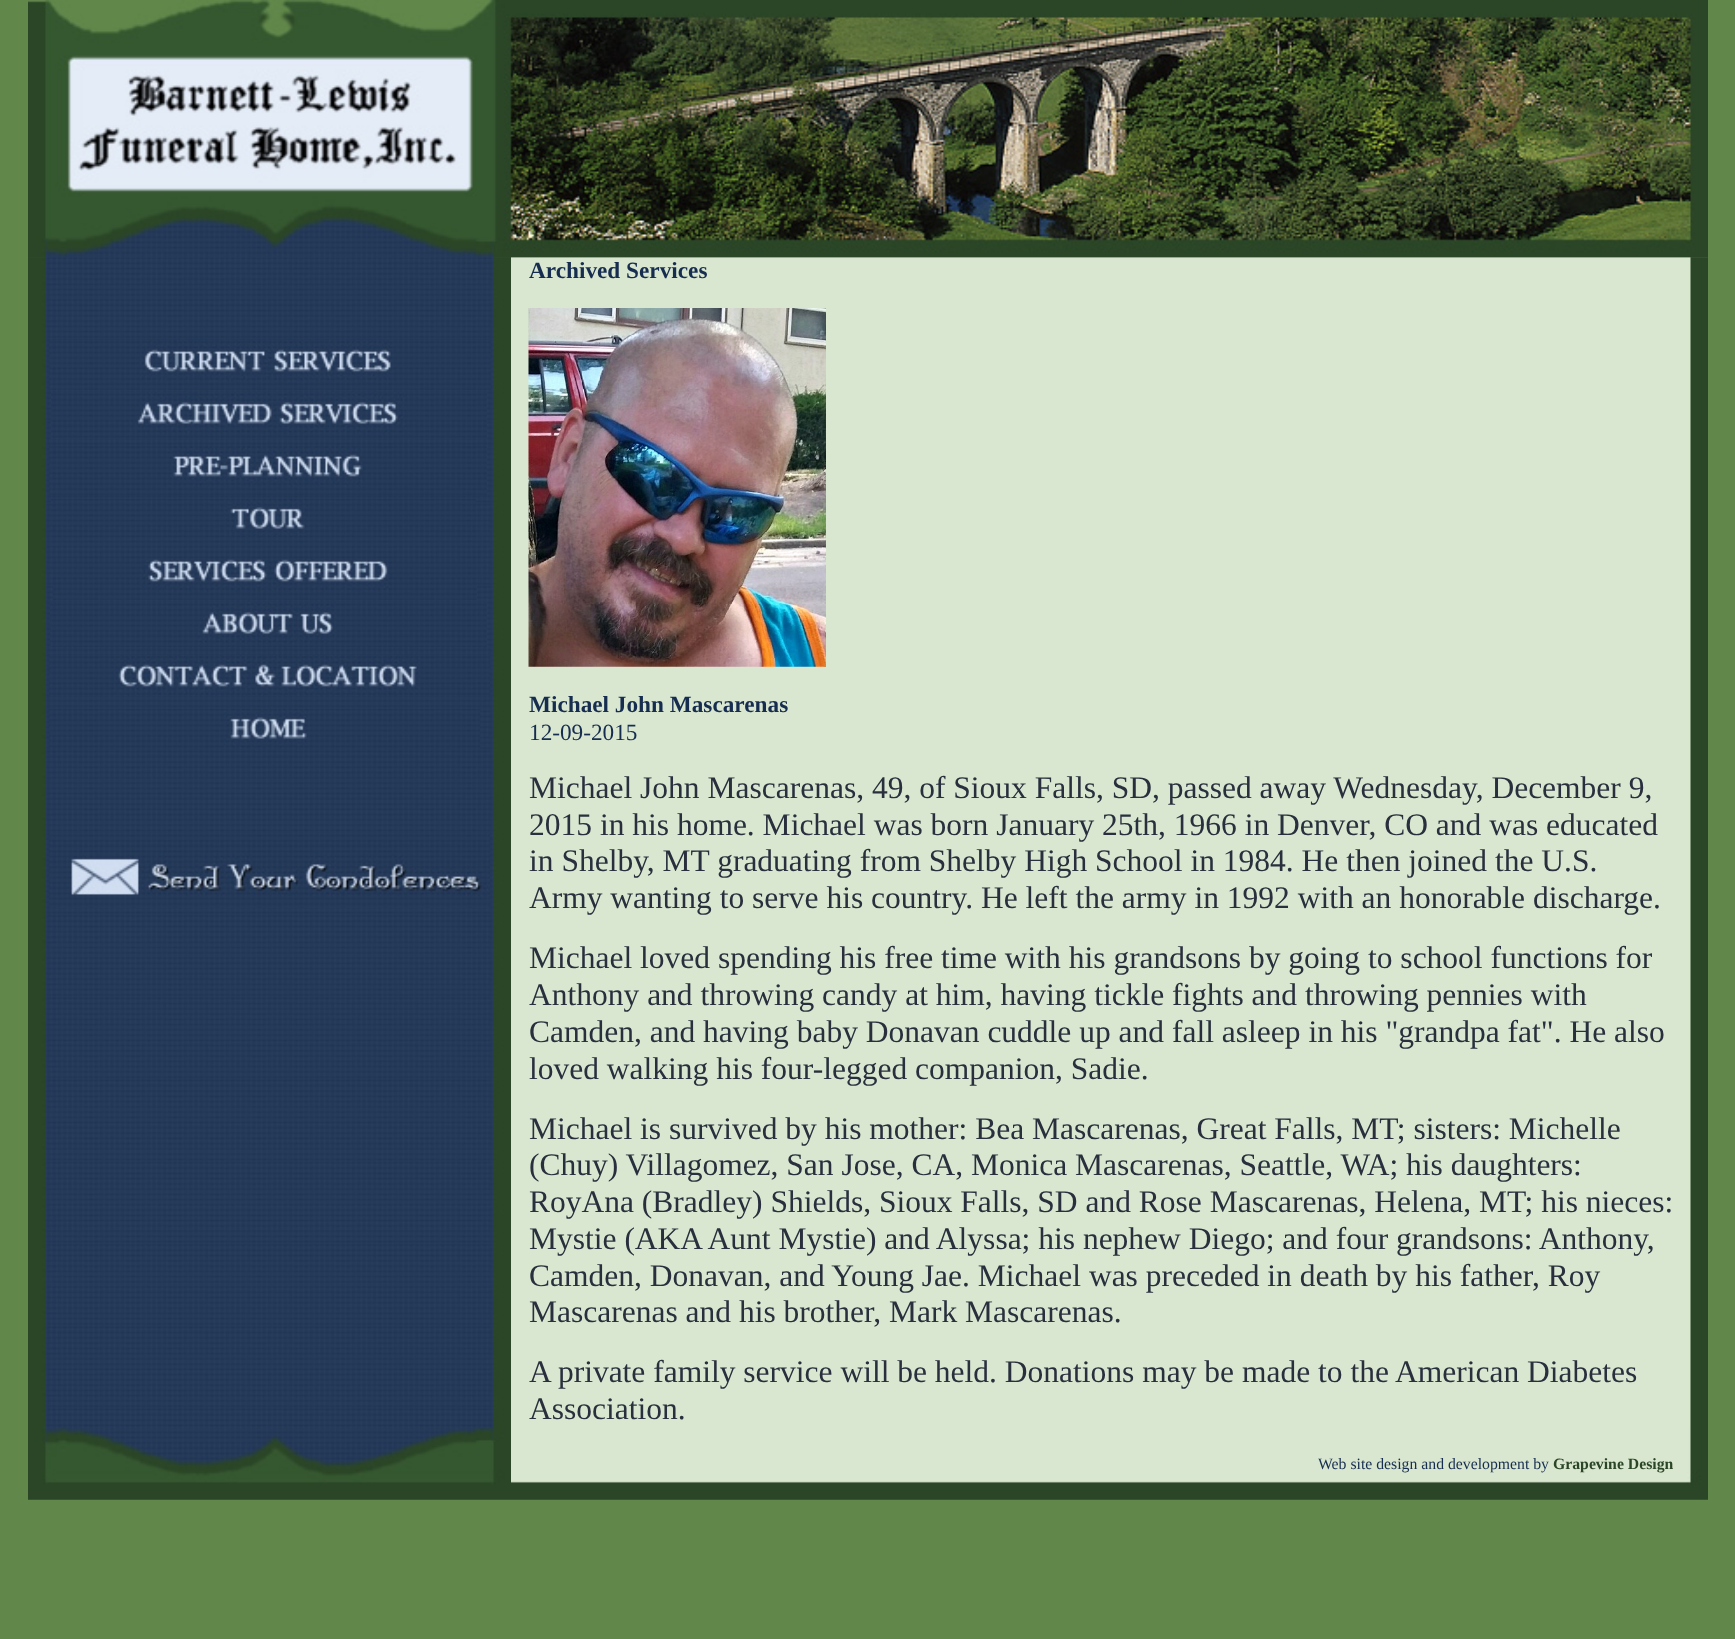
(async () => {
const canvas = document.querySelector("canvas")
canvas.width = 1735
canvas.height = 1639
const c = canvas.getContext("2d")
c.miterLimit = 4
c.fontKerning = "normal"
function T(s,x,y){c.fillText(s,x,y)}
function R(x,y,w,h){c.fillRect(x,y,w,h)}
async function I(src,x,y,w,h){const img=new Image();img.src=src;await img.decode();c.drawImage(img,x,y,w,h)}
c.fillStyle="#61874a"
R(0,0,1735,1639)
await I("2.png",28,257,483,1171)
await I("13.png",511,257,1197,1171)
await I("1.png",28,0,1680,258)
await I("3.png",28,257,483,1)
await I("4.png",49,340,442,50)
await I("5.png",51,392,436,47)
await I("6.png",49,446,438,49)
await I("7.png",51,499,425,38)
await I("8.png",53,559,424,41)
await I("9.png",50,602,437,45)
await I("10.png",49,655,441,41)
await I("11.png",49,709,431,40)
await I("12.png",49,833,441,75)
c.font="bold 23.25px Liberation Serif"
c.fillStyle="#172d4f"
T("Archived Services",529,278)
await I("14.png",528,308,298,359)
T("Michael John Mascarenas",529,712)
c.font="23.25px Liberation Serif"
T("12-09-2015",529,740)
c.font="31.5px Liberation Serif"
c.fillStyle="#292f3d"
T("Michael John Mascarenas, 49, of Sioux Falls, SD, passed away Wednesday, December 9,",529,798)
T("2015 in his home. Michael was born January 25th, 1966 in Denver, CO and was educated",529,835)
T("in Shelby, MT graduating from Shelby High School in 1984. He then joined the U.S.",529,871)
T("Army wanting to serve his country. He left the army in 1992 with an honorable discharge.",529,908)
T("Michael loved spending his free time with his grandsons by going to school functions for",529,968)
T("Anthony and throwing candy at him, having tickle fights and throwing pennies with",529,1005)
T("Camden, and having baby Donavan cuddle up and fall asleep in his \"grandpa fat\". He also",529,1042)
T("loved walking his four-legged companion, Sadie.",529,1079)
T("Michael is survived by his mother: Bea Mascarenas, Great Falls, MT; sisters: Michelle",529,1139)
T("(Chuy) Villagomez, San Jose, CA, Monica Mascarenas, Seattle, WA; his daughters:",529,1175)
T("RoyAna (Bradley) Shields, Sioux Falls, SD and Rose Mascarenas, Helena, MT; his nieces:",529,1212)
T("Mystie (AKA Aunt Mystie) and Alyssa; his nephew Diego; and four grandsons: Anthony,",529,1249)
T("Camden, Donavan, and Young Jae. Michael was preceded in death by his father, Roy",529,1286)
T("Mascarenas and his brother, Mark Mascarenas.",529,1322)
T("A private family service will be held. Donations may be made to the American Diabetes",529,1382)
T("Association.",529,1419)
await I("15.png",28,1428,483,72)
await I("16.png",511,1428,1197,72)
c.font="15.75px Liberation Serif"
c.fillStyle="#172d4f"
T("Web site design and development by",1318,1469)
c.font="bold 15.75px Liberation Serif"
c.fillStyle="#2b4626"
T("Grapevine Design",1553,1469)
})()
